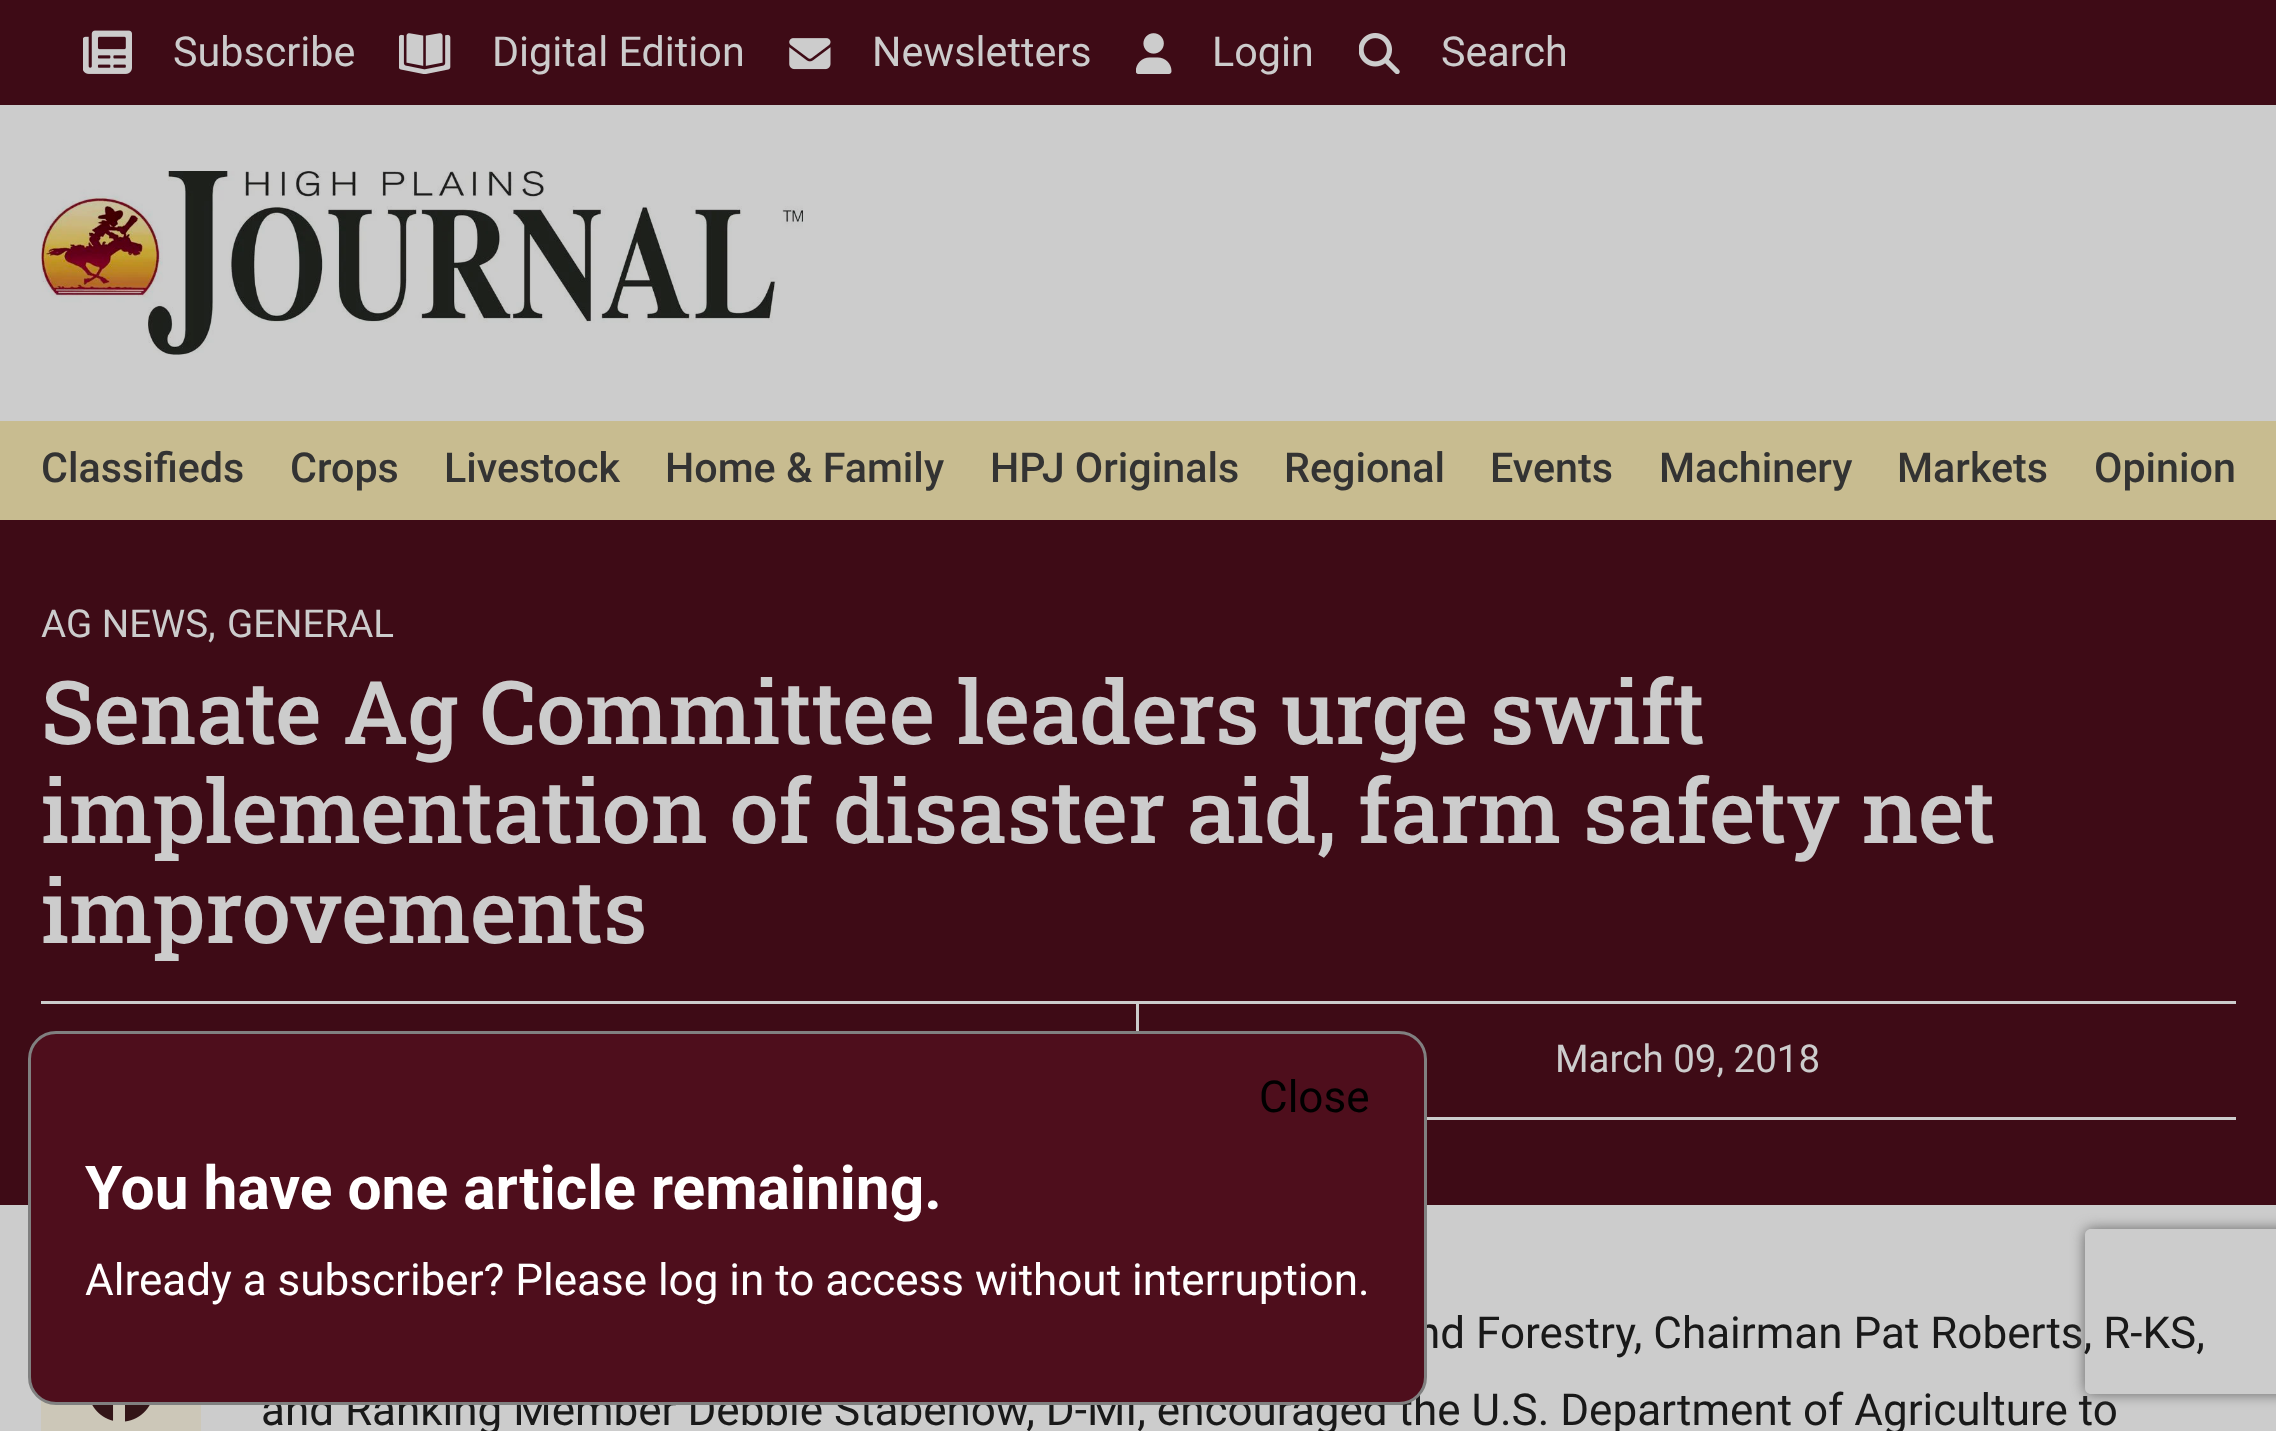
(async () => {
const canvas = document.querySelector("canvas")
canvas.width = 2276
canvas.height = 1431
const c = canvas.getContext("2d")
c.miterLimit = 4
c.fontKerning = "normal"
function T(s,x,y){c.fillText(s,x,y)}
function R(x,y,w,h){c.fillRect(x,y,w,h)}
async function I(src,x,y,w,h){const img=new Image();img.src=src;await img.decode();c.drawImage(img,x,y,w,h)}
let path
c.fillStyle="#ccc"
R(0,0,2276,1431)
c.fillStyle="#3e0b16"
R(0,0,2276,105)
await I("1.png",83,30,49,44)
c.font="41.25px Roboto"
c.fillStyle="#ccc"
T("Subscribe",173,66)
await I("2.png",399,33,52,41)
T("Digital Edition",492,66)
await I("3.png",789,38,42,32)
T("Newsletters",872,66)
await I("4.png",1136,33,36,41)
T("Login",1212,66)
await I("5.png",1359,33,41,41)
T("Search",1441,66)
await I("6.png",41,171,762,184)
c.fillStyle="#c8bc90"
R(0,421,2276,99)
c.font="500 41.25px Roboto"
c.fillStyle="#333"
T("Classifieds",41,482)
T("Crops",290,482)
T("Livestock",444,482)
T("Home & Family",665,482)
T("HPJ Originals",990,482)
T("Regional",1284,482)
T("Events",1490,482)
T("Machinery",1659,482)
T("Markets",1897,482)
T("Opinion",2094,482)
c.fillStyle="#3e0b16"
R(0,520,2276,685)
c.font="38.5px Roboto"
c.fillStyle="#ccc"
T("AG NEWS,",41,637)
T("GENERAL",227,637)
c.font="500 88px Roboto Slab"
T("Senate Ag Committee leaders urge swift",41,744)
T("implementation of disaster aid, farm safety net",41,843)
T("improvements",41,943)
R(41,1001,2195,3)
R(1427,1117,809,3)
R(1136,1004,3,27)
c.font="38.5px Roboto"
T("March 09, 2018",1555,1072)
c.fillStyle="#ccc7b8"
R(41,1400,160,31)
await I("7.png",92,1405,58,17)
c.font="44px Roboto"
c.fillStyle="#191919"
T("nd Forestry, Chairman Pat Roberts, R-KS,",1416,1348)
T("and Ranking Member Debbie Stabenow, D-MI, encouraged the U.S. Department of Agriculture to",261,1425)
c.fillStyle="#4e0e1c"
c.beginPath()
c.roundRect(29.5,1032.5,1396,371,26.5)
c.fill()
c.strokeStyle="#808080"
c.lineWidth=3
c.stroke()
c.fillStyle="#000"
T("Close",1259,1112)
c.font="bold 60.5px Roboto"
c.fillStyle="#fff"
T("You have one article remaining.",85,1209)
c.font="44px Roboto"
T("Already a subscriber? Please log in to access without interruption.",85,1295)
c.save()
path = new Path2D("M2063 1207h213v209h-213zm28 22h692c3.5 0 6 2.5 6 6v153c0 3.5-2.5 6-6 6h-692c-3.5 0-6-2.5-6-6v-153c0-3.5 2.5-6 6-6z")
c.clip(path,"evenodd")
c.fillStyle="#666"
c.filter="blur(7px)"
c.beginPath()
c.roundRect(2085,1229,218,165,6)
c.fill()
c.filter="none"
c.restore()
})()
